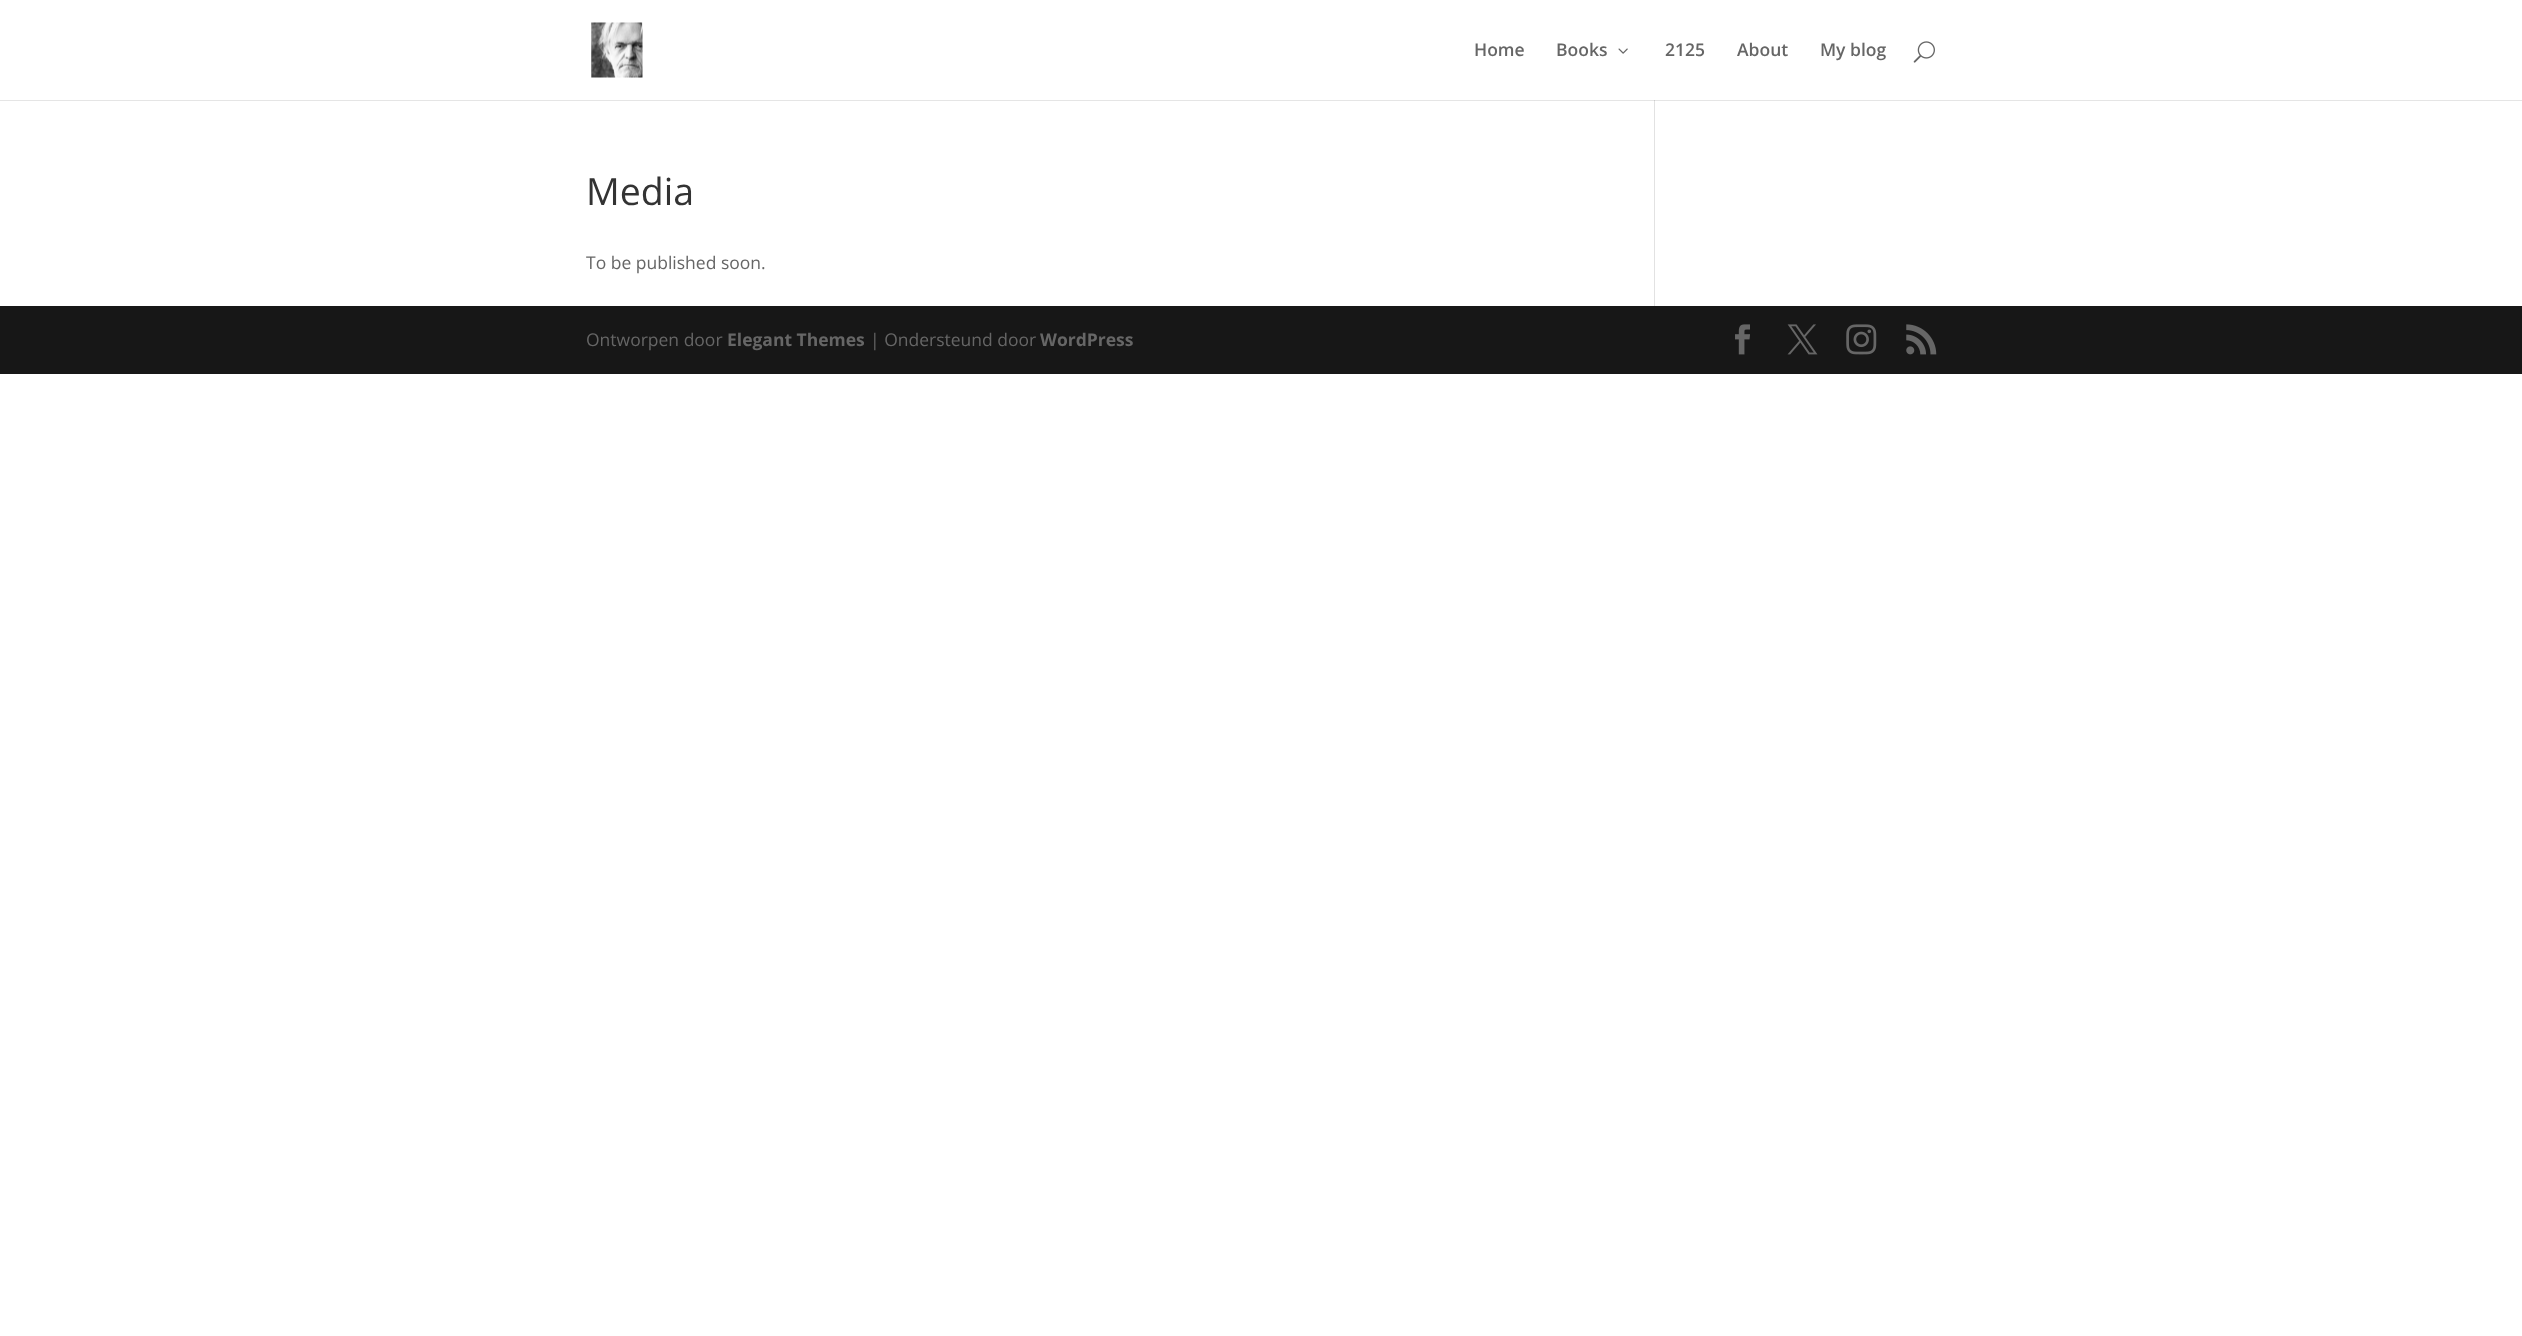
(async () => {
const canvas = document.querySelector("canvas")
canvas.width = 2522
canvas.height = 1336
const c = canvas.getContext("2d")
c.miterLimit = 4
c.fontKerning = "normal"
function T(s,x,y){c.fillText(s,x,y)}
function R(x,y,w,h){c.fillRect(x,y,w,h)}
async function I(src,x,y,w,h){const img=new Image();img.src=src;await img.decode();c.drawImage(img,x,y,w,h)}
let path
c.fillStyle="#fff"
R(0,0,2522,1336)
c.fillStyle="#e2e2e2"
R(1654,100,1,206)
c.fillStyle="#0000001a"
path = new Path2D("M0 100v1h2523v-100h-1v99z")
c.fill(path)
await I("1.png",591,22,52,56)
c.font="600 17.5px Open Sans"
c.fillStyle="#666"
T("Home",1474,56)
T("Books",1556,56)
await I("2.png",1618,48,10,6)
T("2125",1665,56)
T("About",1737,56)
T("My blog",1820,56)
await I("3.png",1913,41,22,22)
c.font="37.5px Open Sans"
c.fillStyle="#333"
T("Media",586,205)
c.font="17.5px Open Sans"
c.fillStyle="#666"
T("To be published soon.",586,269)
c.fillStyle="#171717"
R(0,306,2522,68)
c.fillStyle="#666"
T("Ontworpen door",586,346)
c.font="bold 17.5px Open Sans"
T("Elegant Themes",727,346)
c.font="17.5px Open Sans"
T("| Ondersteund door",870,346)
c.font="bold 17.5px Open Sans"
T("WordPress",1040,346)
await I("4.png",1735,324,15,31)
await I("5.png",1787,324,31,31)
await I("6.png",1846,324,31,31)
await I("7.png",1906,324,31,31)
})()
